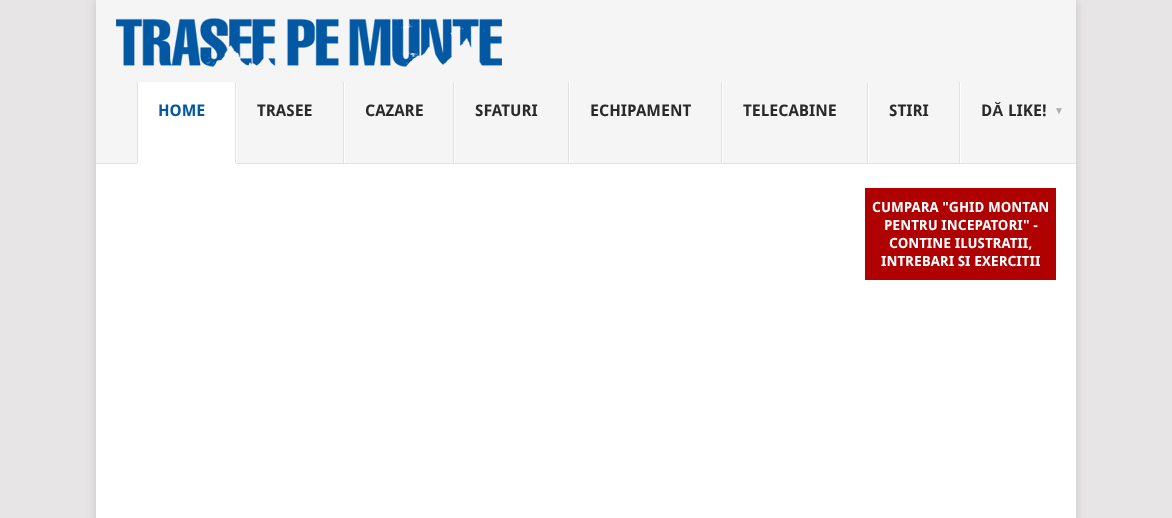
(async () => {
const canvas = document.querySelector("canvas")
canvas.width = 1172
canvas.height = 518
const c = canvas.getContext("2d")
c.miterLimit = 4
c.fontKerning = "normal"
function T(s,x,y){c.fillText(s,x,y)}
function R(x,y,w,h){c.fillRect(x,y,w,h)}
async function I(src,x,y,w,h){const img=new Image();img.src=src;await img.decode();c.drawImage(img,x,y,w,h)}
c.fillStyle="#e7e5e6"
R(0,0,1172,518)
c.fillStyle="#3232322b"
c.filter="blur(5px)"
c.beginPath()
c.rect(96,0,980,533)
c.fill()
c.filter="none"
c.fillStyle="#fff"
R(96,164,980,354)
c.fillStyle="#f5f5f5"
R(96,0,980,163)
await I("1.png",116,17,386,50)
c.fillStyle="#fff"
R(138,82,97,81)
c.fillStyle="#e2e2e2"
R(235,82,1,82)
R(137,82,1,82)
c.font="bold 16px Droid Sans"
c.fillStyle="#0258a3"
T("HOME",158,116)
c.fillStyle="#e2e2e2"
R(343,82,1,82)
c.fillStyle="#fff"
R(236,82,1,82)
c.fillStyle="#e2e2e2"
R(453,82,1,82)
c.fillStyle="#fff"
R(344,82,1,82)
c.fillStyle="#e2e2e2"
R(568,82,1,82)
c.fillStyle="#fff"
R(454,82,1,82)
c.fillStyle="#e2e2e2"
R(721,82,1,82)
c.fillStyle="#fff"
R(569,82,1,82)
c.fillStyle="#e2e2e2"
R(867,82,1,82)
c.fillStyle="#fff"
R(722,82,1,82)
c.fillStyle="#e2e2e2"
R(959,82,1,82)
c.fillStyle="#fff"
R(868,82,1,82)
R(960,82,1,82)
c.fillStyle="#e2e2e2"
R(96,163,980,1)
c.fillStyle="#fff"
R(137,163,99,1)
c.fillStyle="#2a2a2a"
T("TRASEE",257,116)
T("CAZARE",365,116)
T("SFATURI",475,116)
T("ECHIPAMENT",590,116)
T("TELECABINE",743,116)
T("STIRI",889,116)
T("D",981,116)
c.font="bold 16px Liberation Sans"
T("Ă",992,116)
c.font="bold 16px Droid Sans"
T("LIKE!",1008,116)
c.font="bold 10px Liberation Sans"
c.fillStyle="#adadad"
T("▼",1054,114)
c.fillStyle="#af0101"
R(865,188,191,92)
c.font="bold 14px Droid Sans"
c.fillStyle="#fff"
T("CUMPARA \"GHID MONTAN",872,212)
T("PENTRU INCEPATORI\" -",884,230)
T("CONTINE ILUSTRATII,",889,248)
T("INTREBARI SI EXERCITII",881,266)
})()
